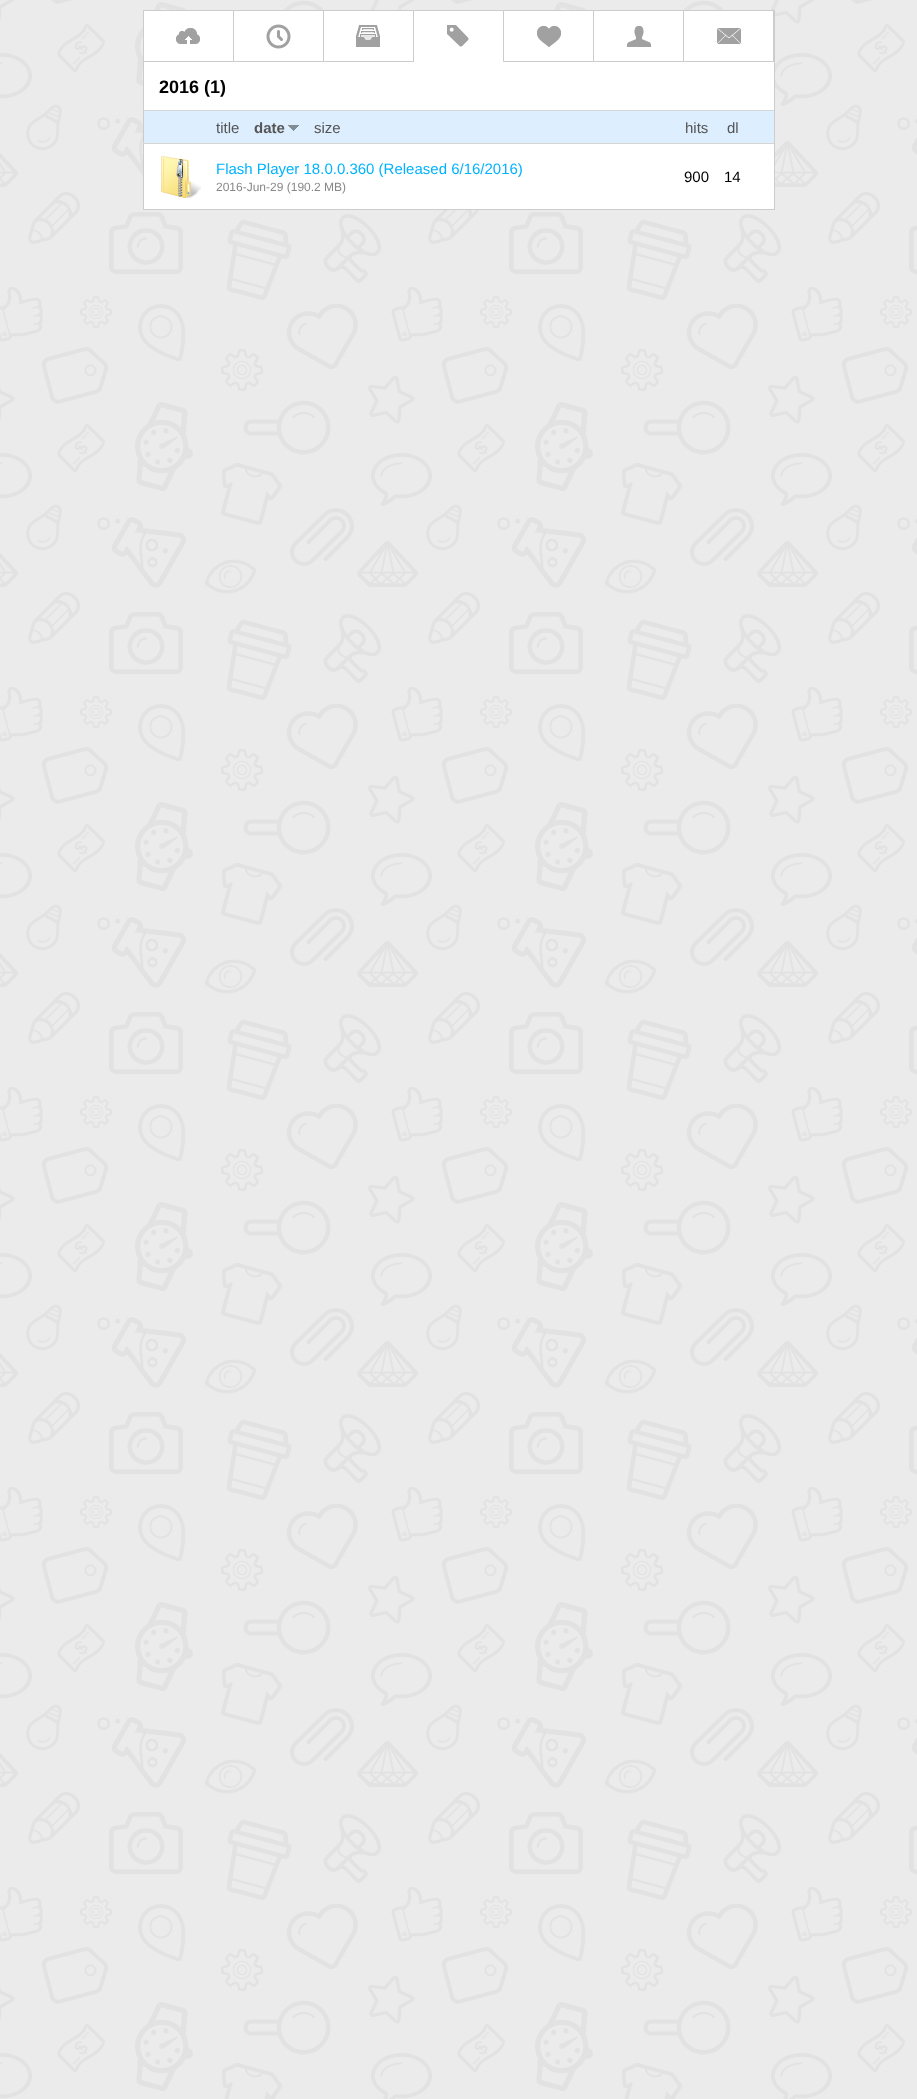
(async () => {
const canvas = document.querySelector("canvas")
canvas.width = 917
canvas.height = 2099
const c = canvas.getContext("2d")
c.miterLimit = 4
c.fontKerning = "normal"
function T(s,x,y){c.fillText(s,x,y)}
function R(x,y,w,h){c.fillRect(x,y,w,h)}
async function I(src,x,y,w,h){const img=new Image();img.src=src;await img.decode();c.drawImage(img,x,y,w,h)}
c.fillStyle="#fff"
R(0,0,917,2099)
await I("1.png",0,0,917,2099)
R(144,61,630,49)
c.strokeStyle="#ccc"
c.strokeRect(143.5,10.5,631,199)
c.beginPath()
c.rect(143.5,10.5,90,51)
c.fill()
c.stroke()
await I("2.png",176,28,24,16)
c.beginPath()
c.rect(233.5,10.5,90,51)
c.fill()
c.stroke()
await I("3.png",266,24,25,25)
c.beginPath()
c.rect(323.5,10.5,90,51)
c.fill()
c.stroke()
await I("4.png",356,25,24,22)
R(414,11,89,50)
await I("5.png",447,25,22,22)
c.beginPath()
c.rect(503.5,10.5,90,51)
c.fill()
c.stroke()
await I("6.png",537,26,24,21)
c.beginPath()
c.rect(593.5,10.5,90,51)
c.fill()
c.stroke()
await I("7.png",627,26,24,21)
c.beginPath()
c.rect(683.5,10.5,90,51)
c.fill()
c.stroke()
await I("8.png",717,28,24,16)
c.font="bold 18px Liberation Sans"
c.fillStyle="#000"
T("2016 (1)",159,93)
c.fillStyle="#d5d5d5"
R(143,110,631,1)
c.fillStyle="#def"
R(144,111,630,32)
c.font="15px Liberation Sans"
c.fillStyle="#555"
T("title",216,133)
c.font="bold 15px Liberation Sans"
T("date",254,133)
await I("9.png",288,125,11,6)
c.font="15px Liberation Sans"
T("size",314,133)
T("hits",685,133)
T("dl",727,133)
c.fillStyle="#fff"
R(144,144,630,65)
c.fillStyle="#d5d5d5"
R(143,143,631,1)
await I("10.png",161,156,40,42)
c.fillStyle="#00b3ff"
T("Flash Player 18.0.0.360 (Released 6/16/2016)",216,174)
c.font="12px Liberation Sans"
c.fillStyle="#888"
T("2016-Jun-29 (190.2 MB)",216,191)
c.font="15px Liberation Sans"
c.fillStyle="#000"
T("900",684,182)
T("14",724,182)
})()
